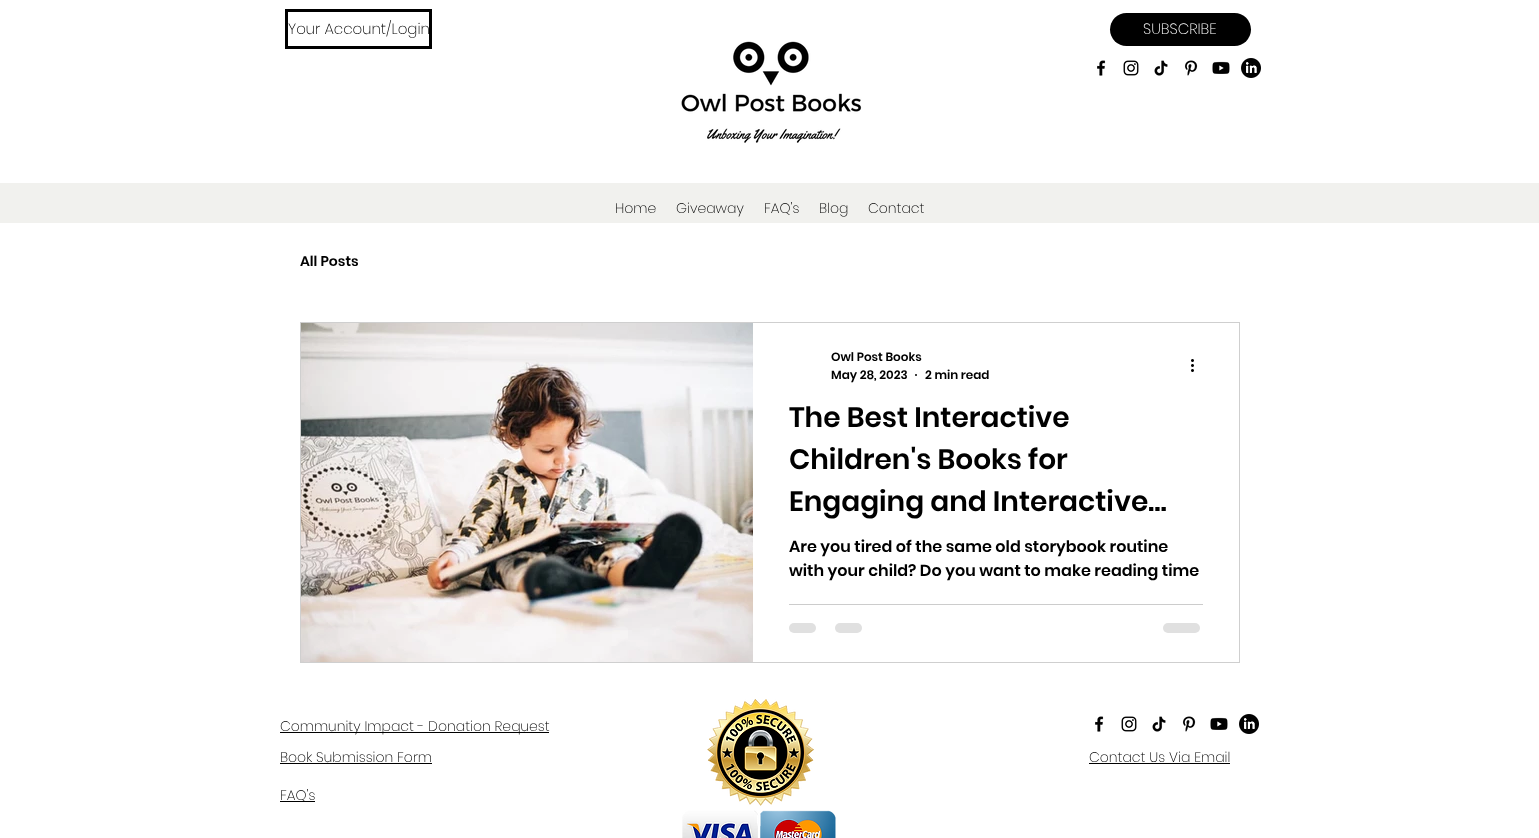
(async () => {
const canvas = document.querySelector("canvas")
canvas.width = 1539
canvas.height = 838
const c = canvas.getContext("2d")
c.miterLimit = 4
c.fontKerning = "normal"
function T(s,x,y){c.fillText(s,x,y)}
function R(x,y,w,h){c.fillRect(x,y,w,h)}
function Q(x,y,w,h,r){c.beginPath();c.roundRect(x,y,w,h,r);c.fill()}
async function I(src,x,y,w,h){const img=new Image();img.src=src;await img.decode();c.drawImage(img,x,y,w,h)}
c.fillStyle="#fff"
R(0,0,1539,838)
c.strokeStyle="#000"
c.lineWidth=3
c.strokeRect(286.5,10.5,144,37)
c.font="200 15px Poppins"
c.fillStyle="#000"
T("Your Account/Login",288,34)
Q(1110,13,141,33,16.5)
c.fillStyle="#fff"
T("SUBSCRIBE",1143,34)
await I("1.png",681,41,181,102)
await I("2.png",1097,60,9,16)
await I("3.png",1123,60,16,16)
await I("4.png",1154,60,14,16)
await I("5.png",1184,60,14,16)
await I("6.png",1212,61,18,13)
await I("7.png",1241,58,20,20)
c.fillStyle="#f1f1ee"
R(0,183,1539,40)
c.font="200 14px Poppins"
c.fillStyle="#000"
T("Home",615,213)
T("Giveaway",676,213)
T("FAQ's",764,213)
T("Blog",819,213)
T("Contact",868,213)
c.font="600 14px Poppins"
T("All Posts",300,266)
c.strokeStyle="#cfcfcf"
c.lineWidth=1
c.strokeRect(300.5,322.5,939,340)
await I("8.png",301,323,452,339)
c.font="600 12px Poppins"
T("Owl Post Books",831,361)
T("May 28, 2023",831,379)
c.beginPath()
c.arc(916,375,1,0,7)
c.fill()
T("2 min read",925,379)
await I("9.png",1191,359,3,13)
c.save()
c.beginPath()
c.rect(789,397,414,126)
c.clip()
c.font="600 28px Poppins"
T("The Best Interactive",789,427)
c.restore()
c.font="600 28px Poppins"
T("Children's Books for",789,469)
T("Engaging and Interactive…",789,511)
c.font="600 16px Poppins"
T("Are you tired of the same old storybook routine",789,552)
T("with your child? Do you want to make reading time",789,576)
c.fillStyle="#ccc"
R(789,604,414,1)
c.fillStyle="#e0e0e0"
Q(789,623,27,10,5)
Q(835,623,27,10,5)
Q(1163,623,37,10,5)
c.fillStyle="#000"
R(280,732,269,1)
c.font="200 14px Poppins"
T("Community Impact - Donation Request",280,731)
await I("10.png",707,699,107,107)
await I("2.png",1095,716,9,16)
await I("3.png",1121,716,16,16)
await I("4.png",1152,716,14,16)
await I("5.png",1182,716,14,16)
await I("6.png",1210,717,18,13)
await I("7.png",1239,714,20,20)
T("Book Submission Form",280,762)
R(280,763,152,1)
T("Contact Us Via Email",1089,762)
R(1089,763,141,1)
R(280,801,35,1)
T("FAQ's",280,800)
await I("11.png",682,810,154,28)
})()
